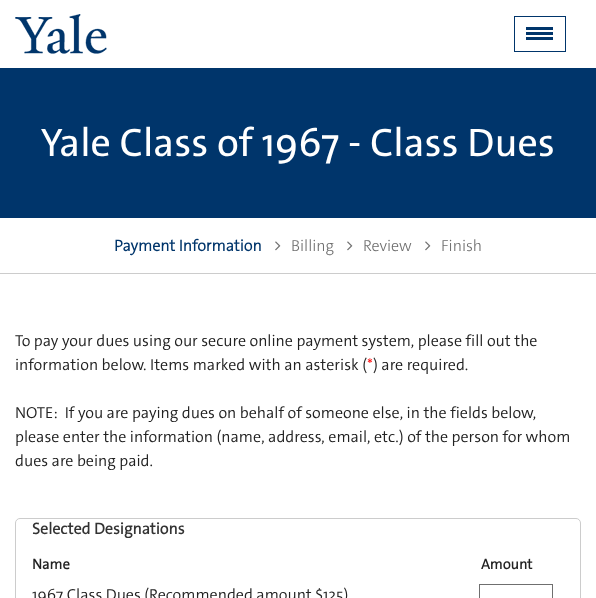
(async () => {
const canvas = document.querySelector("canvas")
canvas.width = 596
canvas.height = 598
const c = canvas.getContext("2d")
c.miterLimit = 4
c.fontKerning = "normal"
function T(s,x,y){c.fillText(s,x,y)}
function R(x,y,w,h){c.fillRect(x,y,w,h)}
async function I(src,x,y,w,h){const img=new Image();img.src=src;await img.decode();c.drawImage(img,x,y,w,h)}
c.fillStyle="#fff"
R(0,0,596,598)
await I("1.png",15,14,92,40)
c.strokeStyle="#00356b"
c.strokeRect(514.5,16.5,51,35)
c.fillStyle="#00356b"
R(526,32,27,3)
R(526,27,27,3)
R(526,37,27,3)
R(0,68,596,150)
c.font="40px 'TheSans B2'"
c.fillStyle="#fff"
T("Yale Class of 1967 - Class Dues",41,156)
c.fillStyle="#ccc"
R(0,273,596,1)
c.font="bold 16px 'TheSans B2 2'"
c.fillStyle="#00356b"
T("Payment Information",114,251)
await I("2.png",275,241,6,10)
c.font="300 16px 'TheSans B2 2'"
c.fillStyle="#6f6f6f"
T("Billing",291,251)
await I("2.png",347,241,6,10)
T("Review",363,251)
await I("2.png",425,241,6,10)
T("Finish",441,251)
c.font="300 16px 'TheSans B2'"
c.fillStyle="#222"
T("To pay your dues using our secure online payment system, please fill out the",15,346)
T("information below. Items marked with an asterisk (",15,370)
c.fillStyle="#f00"
T("*",367,370)
c.fillStyle="#222"
T(") are required.",373,370)
T("NOTE:  If you are paying dues on behalf of someone else, in the fields below,",15,418)
T("please enter the information (name, address, email, etc.) of the person for whom",15,442)
T("dues are being paid.",15,466)
c.beginPath()
c.roundRect(15.5,518.5,565,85,4.5)
c.strokeStyle="#ccc"
c.stroke()
c.font="bold 16px 'TheSans B2'"
c.fillStyle="#333"
T("Selected Designations",32,534)
c.font="bold 14.5px 'TheSans B2'"
c.fillStyle="#222"
T("Name",32,569)
T("Amount",481,569)
c.font="300 16px 'TheSans B2'"
T("1967 Class Dues (Recommended amount $125)",32,600)
c.strokeStyle="#6f6f6f"
c.strokeRect(479.5,584.5,73,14)
})()
